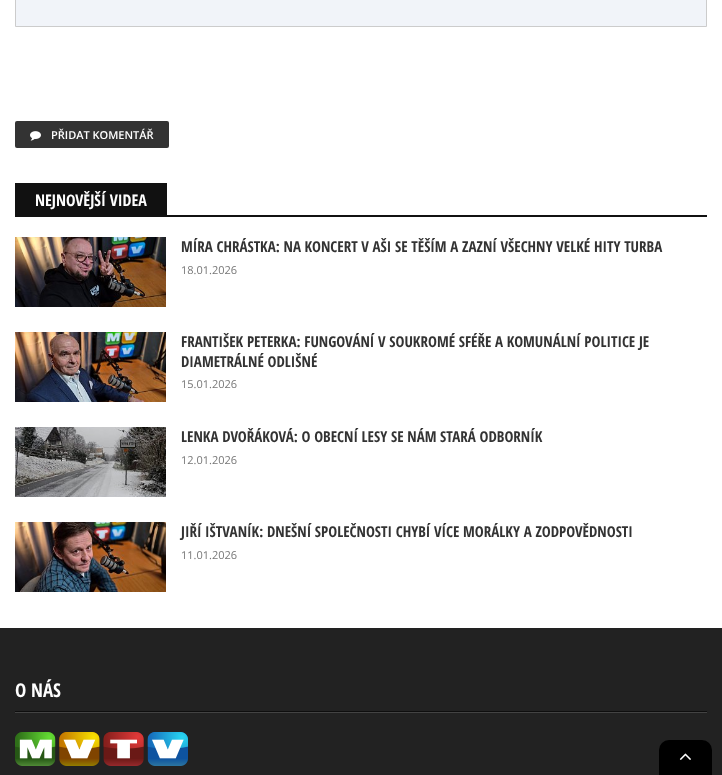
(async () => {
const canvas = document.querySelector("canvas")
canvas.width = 722
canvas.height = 775
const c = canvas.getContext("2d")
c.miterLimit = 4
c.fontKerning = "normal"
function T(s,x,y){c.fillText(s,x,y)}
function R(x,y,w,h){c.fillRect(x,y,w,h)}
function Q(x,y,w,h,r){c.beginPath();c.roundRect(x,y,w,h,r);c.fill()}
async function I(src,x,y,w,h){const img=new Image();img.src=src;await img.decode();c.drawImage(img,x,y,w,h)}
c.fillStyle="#fff"
R(0,0,722,775)
c.fillStyle="#f1f4f9"
c.beginPath()
c.rect(15.5,-.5,691,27)
c.fill()
c.strokeStyle="#ccc"
c.stroke()
c.fillStyle="#333"
Q(15,121,154,27,2)
await I("1.png",30,131,11,10)
c.font="600 11px Open Sans"
c.fillStyle="#fff"
T("PŘIDAT KOMENTÁŘ",51,139)
c.fillStyle="#111"
R(15,215,692,2)
R(15,183,152,32)
c.font="bold 16px Open Sans Condensed"
c.fillStyle="#fff"
T("NEJNOVĚJŠÍ VIDEA",35,206)
await I("2.png",15,237,151,70)
c.font="bold 15px Open Sans Condensed"
c.fillStyle="#333"
T("MÍRA CHRÁSTKA: NA KONCERT V AŠI SE TĚŠÍM A ZAZNÍ VŠECHNY VELKÉ HITY TURBA",181,252)
c.font="11px Open Sans"
c.fillStyle="#777"
T("18.01.2026",181,274)
await I("3.png",15,332,151,70)
c.font="bold 15px Open Sans Condensed"
c.fillStyle="#333"
T("FRANTIŠEK PETERKA: FUNGOVÁNÍ V SOUKROMÉ SFÉŘE A KOMUNÁLNÍ POLITICE JE",181,347)
T("DIAMETRÁLNÉ ODLIŠNÉ",181,367)
c.font="11px Open Sans"
c.fillStyle="#777"
T("15.01.2026",181,388)
await I("4.png",15,427,151,70)
c.font="bold 15px Open Sans Condensed"
c.fillStyle="#333"
T("LENKA DVOŘÁKOVÁ: O OBECNÍ LESY SE NÁM STARÁ ODBORNÍK",181,442)
c.font="11px Open Sans"
c.fillStyle="#777"
T("12.01.2026",181,464)
await I("5.png",15,522,151,70)
c.font="bold 15px Open Sans Condensed"
c.fillStyle="#333"
T("JIŘÍ IŠTVANÍK: DNEŠNÍ SPOLEČNOSTI CHYBÍ VÍCE MORÁLKY A ZODPOVĚDNOSTI",181,537)
c.font="11px Open Sans"
c.fillStyle="#777"
T("11.01.2026",181,559)
c.fillStyle="#222"
R(0,628,722,147)
c.fillStyle="#434343"
R(15,712,692,1)
c.fillStyle="#0e0e0e"
R(15,711,692,1)
c.font="bold 19px Open Sans Condensed"
c.fillStyle="#fff"
T("O NÁS",15,697)
await I("6.png",15,732,173,34)
c.fillStyle="#000"
c.beginPath()
c.roundRect(659,740,53,35,[10,10,0,0])
c.fill()
await I("7.png",679,753,12,7)
})()
